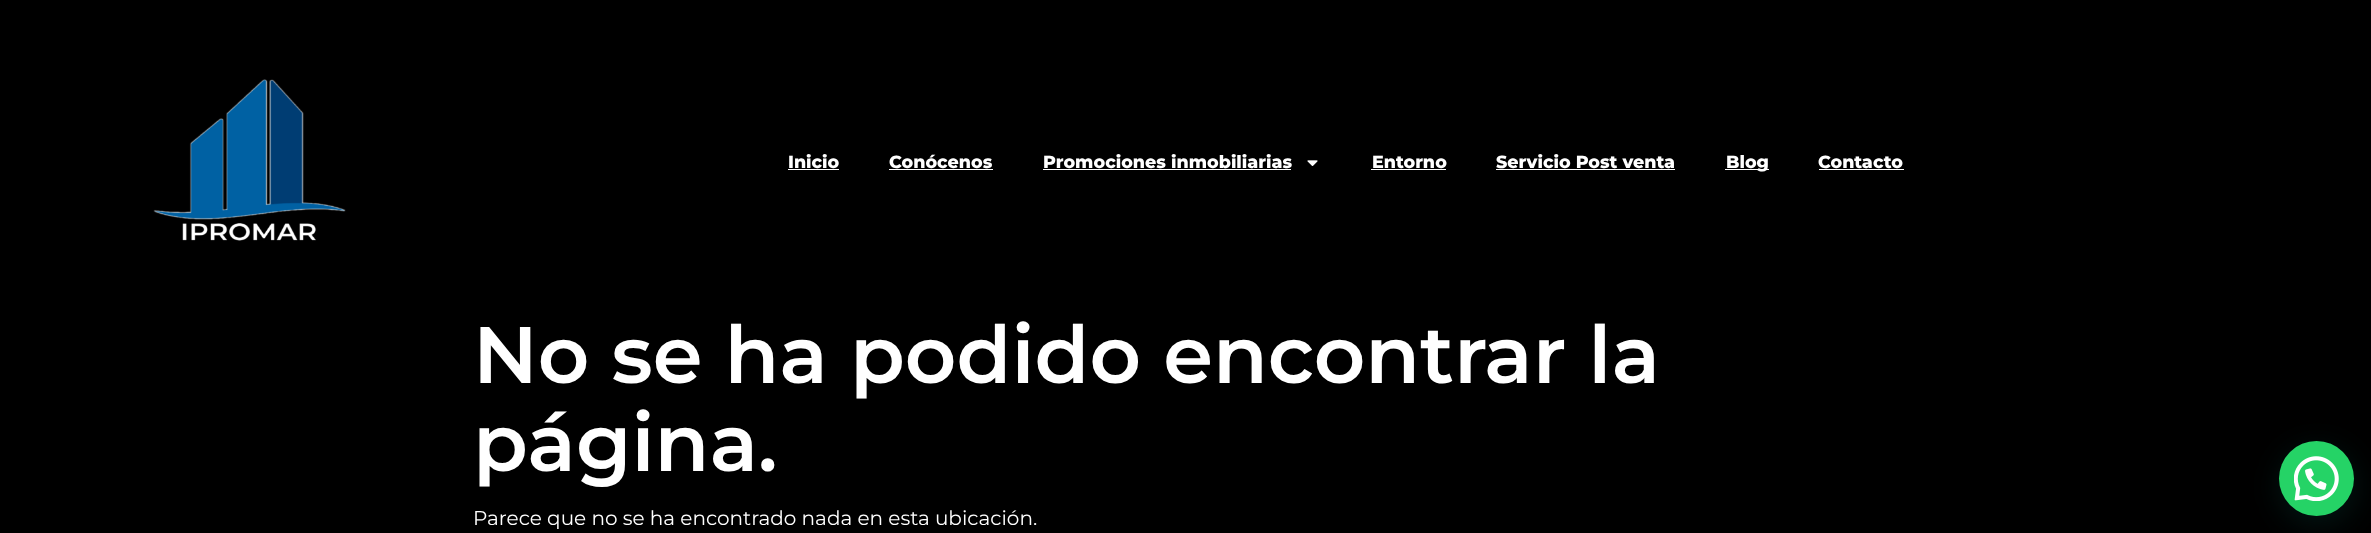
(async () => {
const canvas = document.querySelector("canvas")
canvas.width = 2371
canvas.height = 533
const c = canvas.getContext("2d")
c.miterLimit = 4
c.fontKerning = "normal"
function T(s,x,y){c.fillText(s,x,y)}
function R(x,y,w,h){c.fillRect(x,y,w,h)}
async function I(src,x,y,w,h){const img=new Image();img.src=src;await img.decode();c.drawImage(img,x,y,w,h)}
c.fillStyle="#000"
R(0,0,2371,533)
await I("1.png",153,79,193,162)
c.font="800 17.5px Montserrat"
c.fillStyle="#fff"
T("Inicio",788,168)
R(788,169,51,1)
T("Conócenos",889,168)
R(889,169,104,1)
T("Promociones inmobiliarias",1043,168)
R(1043,169,248,1)
await I("2.png",1307,160,11,6)
T("Entorno",1372,168)
R(1371,169,75,1)
T("Servicio Post venta",1496,168)
R(1496,169,179,1)
R(1725,169,44,1)
T("Blog",1726,168)
T("Contacto",1818,168)
R(1819,169,85,1)
c.font="600 80px Montserrat"
T("No se ha podido encontrar la",473,383)
T("página.",473,471)
c.font="20px Montserrat"
T("Parece que no se ha encontrado nada en esta ubicación.",473,525)
c.fillStyle="#075e543d"
c.filter="blur(15px)"
c.beginPath()
c.roundRect(2280,449,75,75,37.5)
c.fill()
c.filter="none"
c.fillStyle="#25d366"
c.beginPath()
c.arc(2316.5,478.5,37.5,0,7)
c.fill()
await I("3.png",2294,456,45,45)
})()
